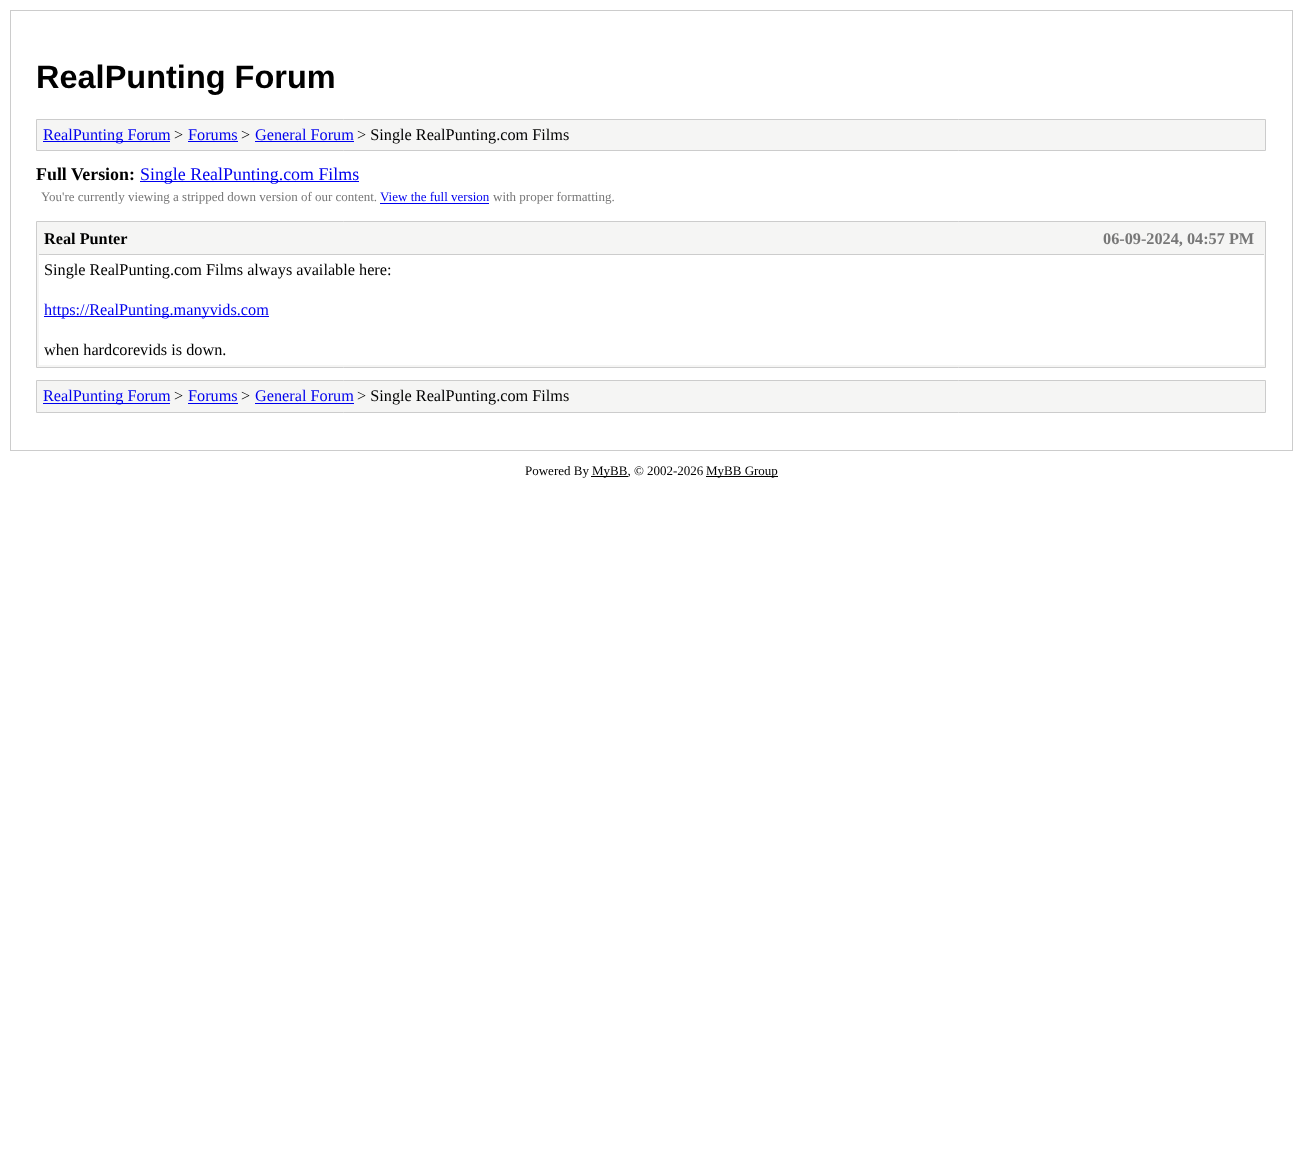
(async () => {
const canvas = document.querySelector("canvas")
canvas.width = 1302
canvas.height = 1171
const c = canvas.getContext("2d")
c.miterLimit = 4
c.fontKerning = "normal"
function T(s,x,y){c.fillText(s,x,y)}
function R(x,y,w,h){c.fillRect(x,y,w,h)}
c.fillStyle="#fff"
R(0,0,1302,1171)
c.strokeStyle="#ccc"
c.strokeRect(10.5,10.5,1282,440)
c.font="bold 32.5px Liberation Sans"
c.fillStyle="#000"
T("RealPunting Forum",36,88)
c.fillStyle="#f5f5f4"
c.beginPath()
c.rect(36.5,119.5,1229,31)
c.fill()
c.stroke()
c.fillStyle="#00e"
R(43,141,127,1)
c.font="16.25px Liberation Serif"
T("RealPunting Forum",43,140)
c.fillStyle="#000"
T(">",174,140)
c.fillStyle="#00e"
T("Forums",188,140)
R(188,141,50,1)
c.fillStyle="#000"
T(">",241,140)
c.fillStyle="#00e"
T("General Forum",255,140)
R(255,141,99,1)
c.fillStyle="#000"
T("> Single RealPunting.com Films",357,140)
c.font="bold 17.9px Liberation Serif"
T("Full Version:",36,180)
c.fillStyle="#00e"
R(140,181,219,1)
c.font="17.9px Liberation Serif"
T("Single RealPunting.com Films",140,180)
c.font="13px Liberation Serif"
c.fillStyle="#777"
T("You're currently viewing a stripped down version of our content.",41,201)
c.fillStyle="#00e"
T("View the full version",380,201)
R(380,203,109,1)
c.fillStyle="#777"
T("with proper formatting.",493,201)
c.fillStyle="#f5f5f4"
c.beginPath()
c.rect(36.5,221.5,1229,146)
c.fill()
c.stroke()
c.fillStyle="#ccc"
R(39,254,1225,1)
c.font="bold 16.25px Liberation Serif"
c.fillStyle="#000"
T("Real Punter",44,244)
c.fillStyle="#777"
T("06-09-2024, 04:57 PM",1103,244)
c.fillStyle="#fff"
R(39,255,1225,110)
c.font="16.25px Liberation Serif"
c.fillStyle="#000"
T("Single RealPunting.com Films always available here:",44,275)
c.fillStyle="#00e"
R(44,316,225,1)
T("https://RealPunting.manyvids.com",44,315)
c.fillStyle="#000"
T("when hardcorevids is down.",44,355)
c.fillStyle="#f5f5f4"
c.beginPath()
c.rect(36.5,380.5,1229,32)
c.fill()
c.stroke()
c.fillStyle="#00e"
R(43,403,127,1)
T("RealPunting Forum",43,401)
c.fillStyle="#000"
T(">",174,401)
c.fillStyle="#00e"
T("Forums",188,401)
R(188,403,50,1)
c.fillStyle="#000"
T(">",241,401)
c.fillStyle="#00e"
T("General Forum",255,401)
R(255,403,99,1)
c.fillStyle="#000"
T("> Single RealPunting.com Films",357,401)
c.font="13px Liberation Serif"
T("Powered By",525,475)
R(591,476,37,1)
T("MyBB, © 2002-2026",592,475)
R(706,476,72,1)
T("MyBB Group",706,475)
})()
